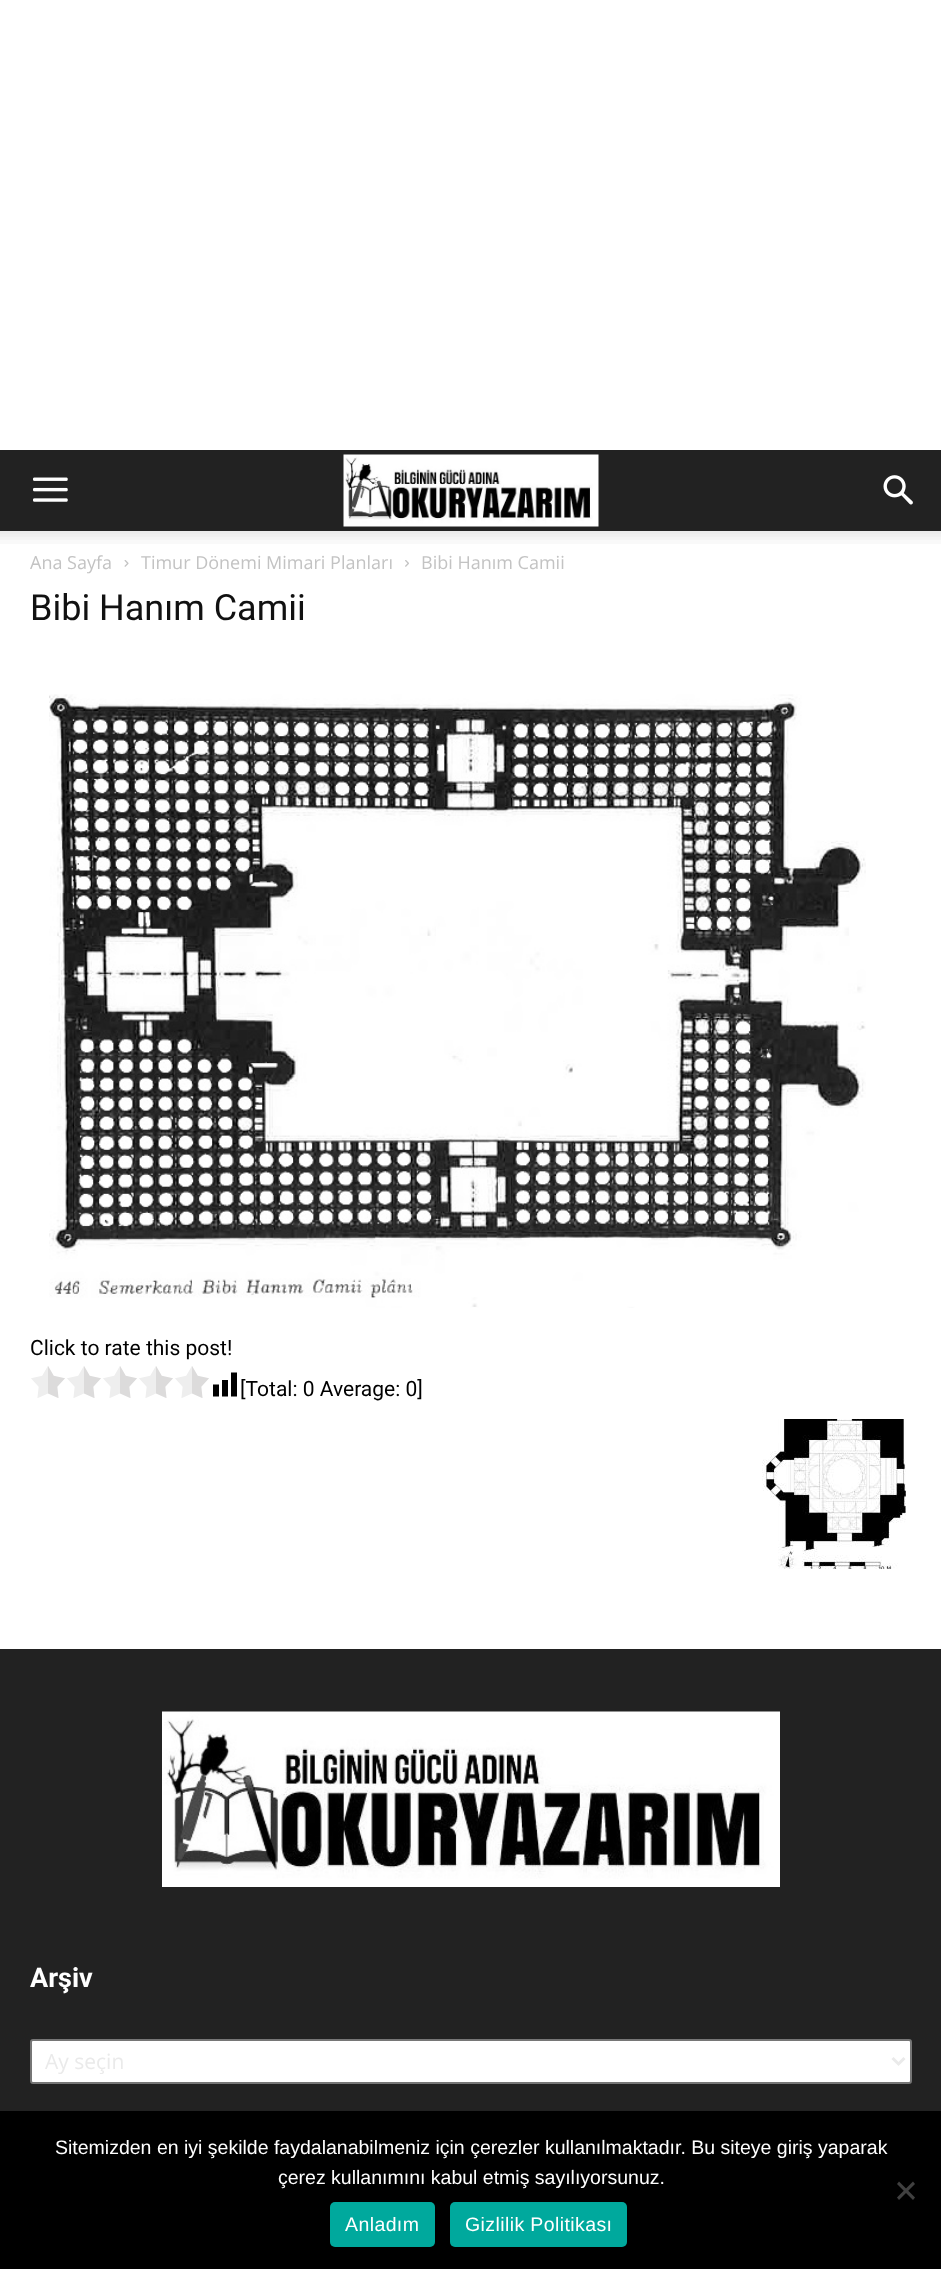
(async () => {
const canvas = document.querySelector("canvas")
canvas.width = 941
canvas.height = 2269
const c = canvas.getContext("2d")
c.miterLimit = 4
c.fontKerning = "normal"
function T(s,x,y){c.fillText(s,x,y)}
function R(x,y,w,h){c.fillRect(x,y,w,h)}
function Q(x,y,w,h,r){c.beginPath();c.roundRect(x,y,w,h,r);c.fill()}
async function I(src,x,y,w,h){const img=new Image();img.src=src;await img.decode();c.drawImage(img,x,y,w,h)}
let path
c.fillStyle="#fff"
R(0,0,941,2269)
c.fillStyle="#222"
R(0,450,941,81)
await I("1.png",33,477,35,25)
await I("2.png",343,454,256,73)
await I("3.png",883,475,30,30)
await I("4.png",0,531,941,13)
c.font="18px Open Sans"
c.fillStyle="#c3c3c3"
T("Ana Sayfa",30,569)
await I("5.png",124,560,5,7)
T("Timur Dönemi Mimari Planları",141,569)
await I("6.png",405,560,4,7)
T("Bibi Hanım Camii",421,569)
c.font="36px Roboto"
c.fillStyle="#111"
T("Bibi Hanım Camii",30,620)
await I("7.png",49,694,817,614)
c.font="21px Roboto"
c.fillStyle="#000"
T("Click to rate this post!",30,1355)
await I("8.png",31,1366,178,32)
await I("9.png",213,1372,24,25)
T("[Total: 0 Average: 0]",240,1396)
await I("10.png",762,1419,144,150)
c.fillStyle="#222"
R(0,1649,941,462)
await I("11.png",162,1711,618,176)
c.font="bold 27px Roboto"
c.fillStyle="#fff"
T("Arşiv",30,1987)
c.beginPath()
c.roundRect(31,2040,880,43,2)
c.fill()
c.strokeStyle="#767676"
c.lineWidth=2
c.stroke()
path = new Path2D("M892.5 2058l6 6l6-6")
c.strokeStyle="#eaeaea"
c.lineWidth=3
c.stroke(path)
c.font="21px Open Sans"
c.fillStyle="#eaeaea"
T("Ay seçin",45,2069)
c.fillStyle="#000"
R(0,2111,941,158)
c.font="19.5px Liberation Sans"
c.fillStyle="#fff"
T("Sitemizden en iyi şekilde faydalanabilmeniz için çerezler kullanılmaktadır. Bu siteye giriş yaparak",55,2154)
T("çerez kullanımını kabul etmiş sayılıyorsunuz.",278,2184)
c.fillStyle="#404040"
path = new Path2D("M913 2181.5l2 2.5l-16 16l-2-2.5z")
c.fill(path)
path = new Path2D("M897 2184l2-2.5l16 16l-2 2.5z")
c.fill(path)
c.fillStyle="#00a99d"
Q(330,2202,105,45,5)
c.letterSpacing="0.4px"
c.fillStyle="#fff"
T("Anladım",345,2231)
c.fillStyle="#00a99d"
Q(450,2202,177,45,5)
c.fillStyle="#fff"
T("Gizlilik Politikası",465,2231)
})()
